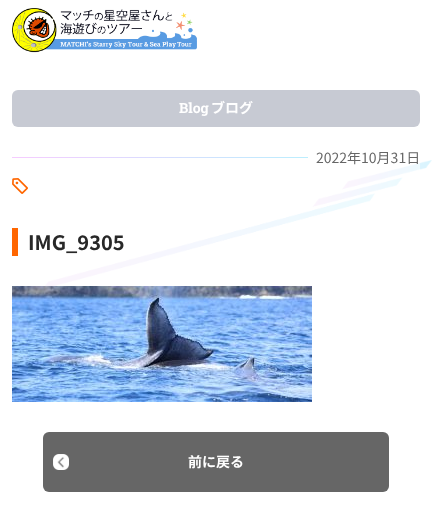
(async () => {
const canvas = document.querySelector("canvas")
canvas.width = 432
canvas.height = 521
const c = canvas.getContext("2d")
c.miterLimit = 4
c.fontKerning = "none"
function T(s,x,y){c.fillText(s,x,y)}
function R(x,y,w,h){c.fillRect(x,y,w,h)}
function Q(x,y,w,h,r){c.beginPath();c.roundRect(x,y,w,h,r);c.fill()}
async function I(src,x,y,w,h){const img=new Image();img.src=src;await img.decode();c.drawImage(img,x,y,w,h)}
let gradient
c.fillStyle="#fff"
R(0,0,432,521)
await I("1.png",12,8,185,45)
await I("2.png",45,160,387,126)
c.fillStyle="#c7cad3"
Q(12,90,408,37,6)
c.font="bold 14px Roboto Slab"
c.fillStyle="#fff"
T("Blog",179,113)
c.font="bold 14px Noto Sans JP"
T("ブログ",211,113)
gradient = c.createLinearGradient(12,158,308,158)
gradient.addColorStop(0,"#f6ccff")
gradient.addColorStop(1,"#bbeefe")
c.fillStyle = gradient
R(12,157,296,1)
c.font="14px Noto Sans JP"
c.fillStyle="#666"
T("2022年10月31日",316,163)
await I("3.png",12,178,16,16)
c.fillStyle="#f60"
R(12,228,6,28)
c.font="bold 20px Noto Sans JP"
c.fillStyle="#282828"
T("IMG_9305",28,250)
await I("4.png",12,286,300,116)
c.fillStyle="#666"
Q(43,432,346,60,6)
await I("5.png",53,454,16,16)
c.font="bold 14px Noto Sans JP"
c.fillStyle="#fff"
T("前に戻る",188,467)
})()
